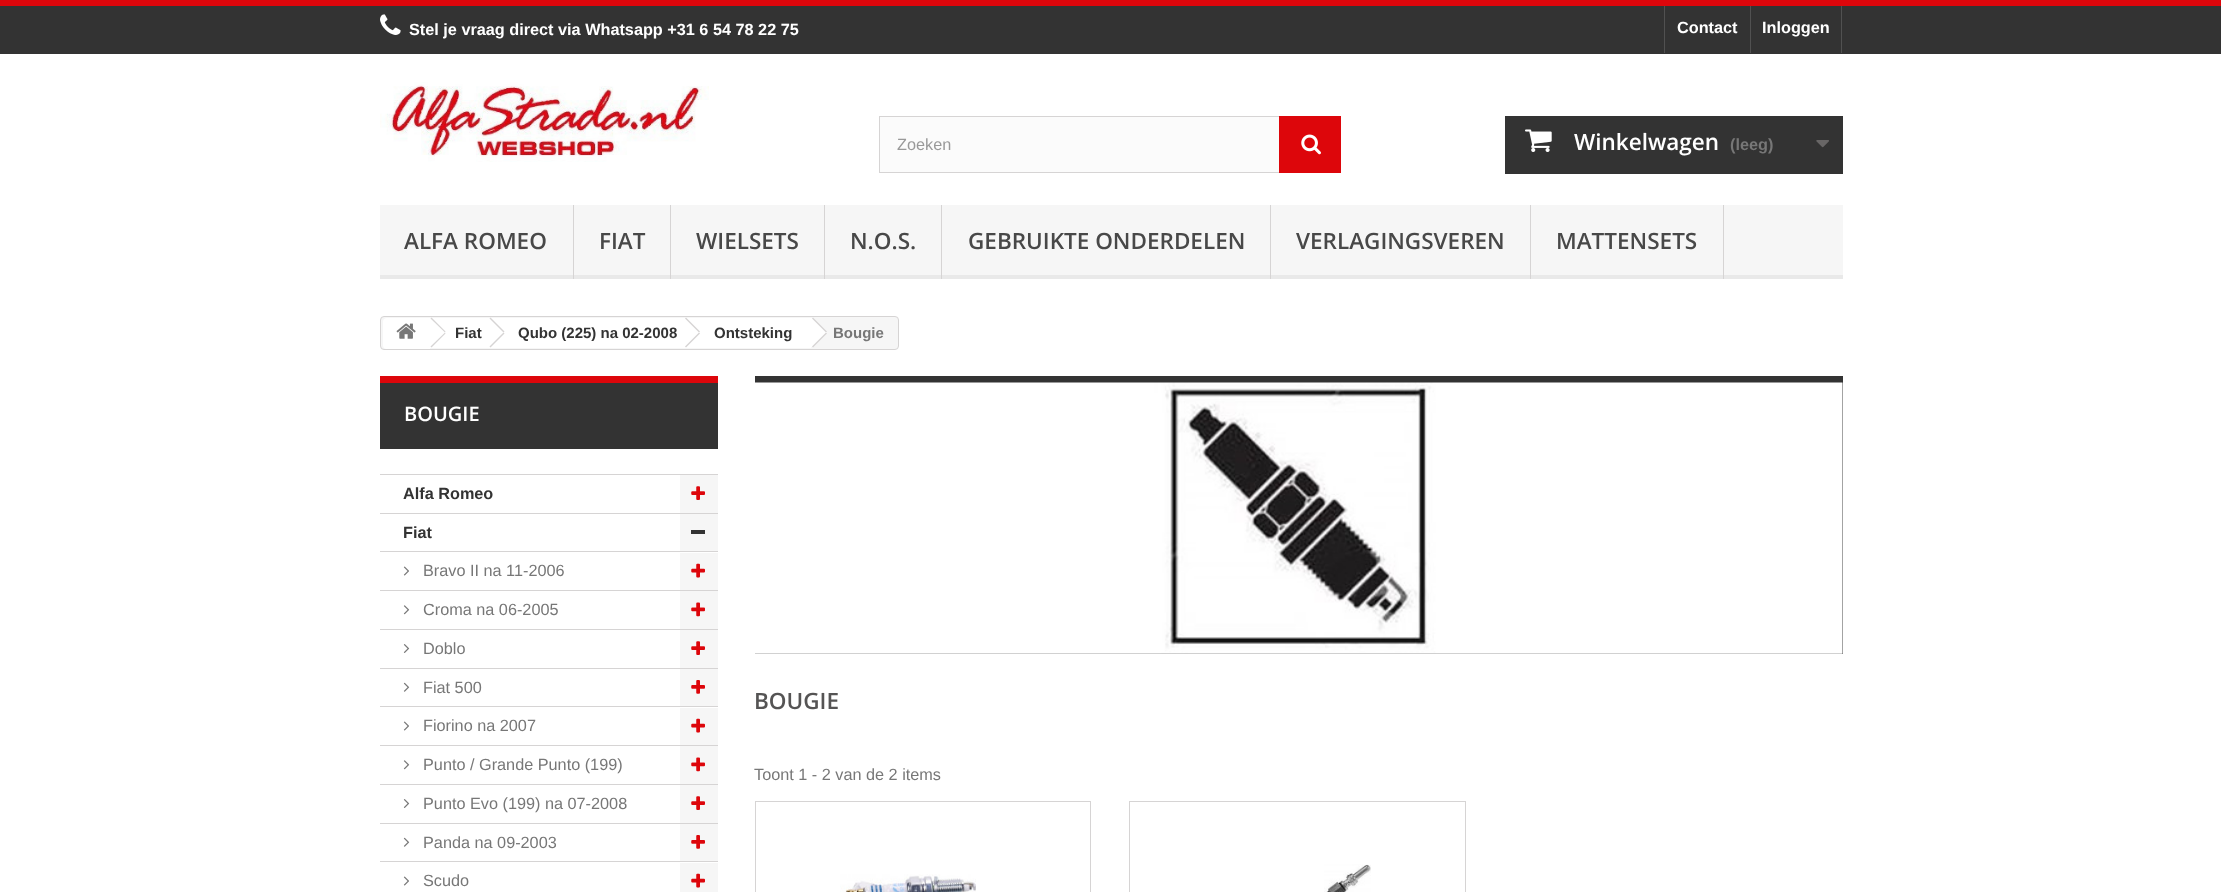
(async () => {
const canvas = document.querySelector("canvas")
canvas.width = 2221
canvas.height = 892
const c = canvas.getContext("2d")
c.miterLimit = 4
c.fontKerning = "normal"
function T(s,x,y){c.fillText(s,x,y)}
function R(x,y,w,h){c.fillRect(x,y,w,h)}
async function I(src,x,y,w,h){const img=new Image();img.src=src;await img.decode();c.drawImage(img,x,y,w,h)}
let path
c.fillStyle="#fff"
R(0,0,2221,892)
c.fillStyle="#333"
R(0,6,2221,48)
c.fillStyle="#dd060b"
R(0,0,2221,6)
await I("1.png",380,14,21,21)
c.font="bold 16.25px Liberation Sans"
c.fillStyle="#fff"
T("Stel je vraag direct via Whatsapp +31 6 54 78 22 75",409,35)
c.fillStyle="#515151"
R(1664,6,1,47)
c.fillStyle="#fff"
T("Contact",1677,33)
c.fillStyle="#515151"
R(1841,6,1,47)
R(1750,6,1,47)
c.fillStyle="#fff"
T("Inloggen",1762,33)
await I("2.png",380,82,329,80)
c.fillStyle="#fbfbfb"
R(880,117,399,55)
c.strokeStyle="#d6d4d4"
c.strokeRect(879.5,116.5,461,56)
c.font="16.25px Liberation Sans"
c.fillStyle="#999"
T("Zoeken",897,150)
c.fillStyle="#dd060b"
R(1279,116,62,57)
await I("3.png",1301,134,20,21)
c.fillStyle="#333"
R(1505,116,338,58)
await I("4.png",1525,129,27,23)
c.font="600 22.5px Open Sans"
c.fillStyle="#fff"
T("Winkelwagen",1574,150)
c.font="bold 16.25px Liberation Sans"
c.fillStyle="#777"
T("(leeg)",1730,150)
await I("5.png",1816,140,13,8)
c.fillStyle="#f6f6f6"
R(380,205,1463,70)
c.fillStyle="#e9e9e9"
R(380,275,1463,4)
c.fillStyle="#d6d4d4"
R(573,205,1,74)
c.font="600 22.5px Open Sans"
c.fillStyle="#484848"
T("ALFA ROMEO",404,249)
c.fillStyle="#d6d4d4"
R(670,205,1,74)
c.fillStyle="#484848"
T("FIAT",599,249)
c.fillStyle="#d6d4d4"
R(824,205,1,74)
c.fillStyle="#484848"
T("WIELSETS",696,249)
c.fillStyle="#d6d4d4"
R(941,205,1,74)
c.fillStyle="#484848"
T("N.O.S.",850,249)
c.fillStyle="#d6d4d4"
R(1270,205,1,74)
c.fillStyle="#484848"
T("GEBRUIKTE ONDERDELEN",968,249)
c.fillStyle="#d6d4d4"
R(1530,205,1,74)
c.fillStyle="#484848"
T("VERLAGINGSVEREN",1296,249)
c.fillStyle="#d6d4d4"
R(1723,205,1,74)
c.fillStyle="#484848"
T("MATTENSETS",1556,249)
c.fillStyle="#f6f6f6"
c.beginPath()
c.roundRect(380.5,316.5,518,33,3.5)
c.fill()
c.stroke()
c.fillStyle="#fff"
c.beginPath()
c.roundRect(383,318,47,31,[4,0,0,4])
c.fill()
await I("6.png",396,323,20,16)
R(430,318,61,30)
c.fillStyle="#d6d4d4"
path = new Path2D("M431.5 317.5l14 14l-.5 1l-14.5-14z")
c.fill(path)
path = new Path2D("M445 332.5l.5 1l-14 14l-1-1z")
c.fill(path)
c.font="bold 15px Liberation Sans"
c.fillStyle="#333"
T("Fiat",455,338)
c.fillStyle="#fff"
path = new Path2D("M503.5 318.5l-.5-.5h-2.5l-.5 .5l-12 12c-1 1-1 3 0 4l12 12c1 1 2.5 1 3.5 0l12.5-12c1-1 1-3 0-4z")
c.fill(path)
R(491,318,195,30)
c.fillStyle="#d6d4d4"
path = new Path2D("M490.5 317.5l14 14l-1 1l-14-14z")
c.fill(path)
path = new Path2D("M503.5 332.5l1 1l-14 14l-1-1z")
c.fill(path)
c.fillStyle="#333"
T("Qubo (225) na 02-2008",518,338)
c.fillStyle="#fff"
path = new Path2D("M699 318.5l-.5-.5h-2.5l-.5 .5l-12 12c-1 1-1 3 0 4l12 12c1 1 2.5 1 3.5 0l12.5-12c1-1 1-3 0-4z")
c.fill(path)
R(686,318,125,30)
c.fillStyle="#d6d4d4"
path = new Path2D("M686 317.5l14 14l-1 1l-14-14z")
c.fill(path)
path = new Path2D("M699 332.5l1 1l-14 14l-1-1z")
c.fill(path)
c.fillStyle="#333"
T("Ontsteking",714,338)
c.fillStyle="#fff"
path = new Path2D("M814 318.5l-.5-.5h-3l-.5 .5l-12 12c-1 1-1 3 0 4l12 12c1 1 3 1 4 0l12-12c1-1 1-3 0-4z")
c.fill(path)
c.fillStyle="#d6d4d4"
path = new Path2D("M813 317.5l14 14l-1 1l-14-14z")
c.fill(path)
path = new Path2D("M826 332.5l1 1l-14 14l-1-1z")
c.fill(path)
c.fillStyle="#777"
T("Bougie",833,338)
c.fillStyle="#333"
R(380,383,338,66)
c.fillStyle="#dd060b"
R(380,376,338,7)
c.font="600 20px Open Sans"
c.fillStyle="#fff"
T("BOUGIE",404,421)
c.fillStyle="#d6d4d4"
R(380,474,338,1)
R(380,513,338,1)
c.font="bold 16.25px Liberation Sans"
c.fillStyle="#333"
T("Alfa Romeo",403,499)
c.fillStyle="#f6f6f6"
R(680,475,38,38)
await I("7.png",691,486,14,14)
c.fillStyle="#d6d4d4"
R(380,551,338,1)
c.fillStyle="#333"
T("Fiat",403,538)
c.fillStyle="#f6f6f6"
R(680,514,38,37)
c.fillStyle="#333"
R(691,530,14,4)
c.fillStyle="#d6d4d4"
R(380,590,338,1)
await I("8.png",403,566,6,10)
c.font="16.25px Liberation Sans"
c.fillStyle="#777"
T("Bravo II na 11-2006",423,576)
c.fillStyle="#f6f6f6"
R(680,553,38,37)
await I("9.png",691,563,14,15)
c.fillStyle="#d6d4d4"
R(380,629,338,1)
await I("10.png",403,605,7,10)
c.fillStyle="#777"
T("Croma na 06-2005",423,615)
c.fillStyle="#f6f6f6"
R(680,591,38,38)
await I("11.png",691,602,14,15)
c.fillStyle="#d6d4d4"
R(380,668,338,1)
await I("12.png",403,644,7,9)
c.fillStyle="#777"
T("Doblo",423,654)
c.fillStyle="#f6f6f6"
R(680,630,38,38)
await I("7.png",691,641,14,14)
c.fillStyle="#d6d4d4"
R(380,706,338,1)
await I("13.png",403,682,7,10)
c.fillStyle="#777"
T("Fiat 500",423,693)
c.fillStyle="#f6f6f6"
R(680,669,38,37)
await I("14.png",691,680,14,14)
c.fillStyle="#d6d4d4"
R(380,745,338,1)
await I("8.png",403,721,6,10)
c.fillStyle="#777"
T("Fiorino na 2007",423,731)
c.fillStyle="#f6f6f6"
R(680,708,38,37)
await I("9.png",691,718,14,15)
c.fillStyle="#d6d4d4"
R(380,784,338,1)
await I("10.png",403,760,7,10)
c.fillStyle="#777"
T("Punto / Grande Punto (199)",423,770)
c.fillStyle="#f6f6f6"
R(680,746,38,38)
await I("11.png",691,757,14,15)
c.fillStyle="#d6d4d4"
R(380,823,338,1)
await I("12.png",403,799,7,9)
c.fillStyle="#777"
T("Punto Evo (199) na 07-2008",423,809)
c.fillStyle="#f6f6f6"
R(680,785,38,38)
await I("7.png",691,796,14,14)
c.fillStyle="#d6d4d4"
R(380,861,338,1)
await I("13.png",403,837,7,10)
c.fillStyle="#777"
T("Panda na 09-2003",423,848)
c.fillStyle="#f6f6f6"
R(680,824,38,37)
await I("14.png",691,835,14,14)
await I("8.png",403,876,6,10)
c.fillStyle="#777"
T("Scudo",423,886)
c.fillStyle="#f6f6f6"
R(680,863,38,29)
await I("9.png",691,873,14,15)
c.fillStyle="#333"
R(755,376,1088,7)
c.fillStyle="#464646"
R(755,383,1088,271)
await I("15.png",755,382,1088,272)
c.font="600 22.5px Open Sans"
c.fillStyle="#555454"
T("BOUGIE",754,709)
c.font="16.25px Liberation Sans"
c.fillStyle="#777"
T("Toont 1 - 2 van de 2 items",754,780)
c.strokeRect(755.5,801.5,335,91)
await I("16.png",840,874,136,18)
c.strokeRect(1129.5,801.5,336,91)
await I("17.png",1324,864,47,28)
})()
